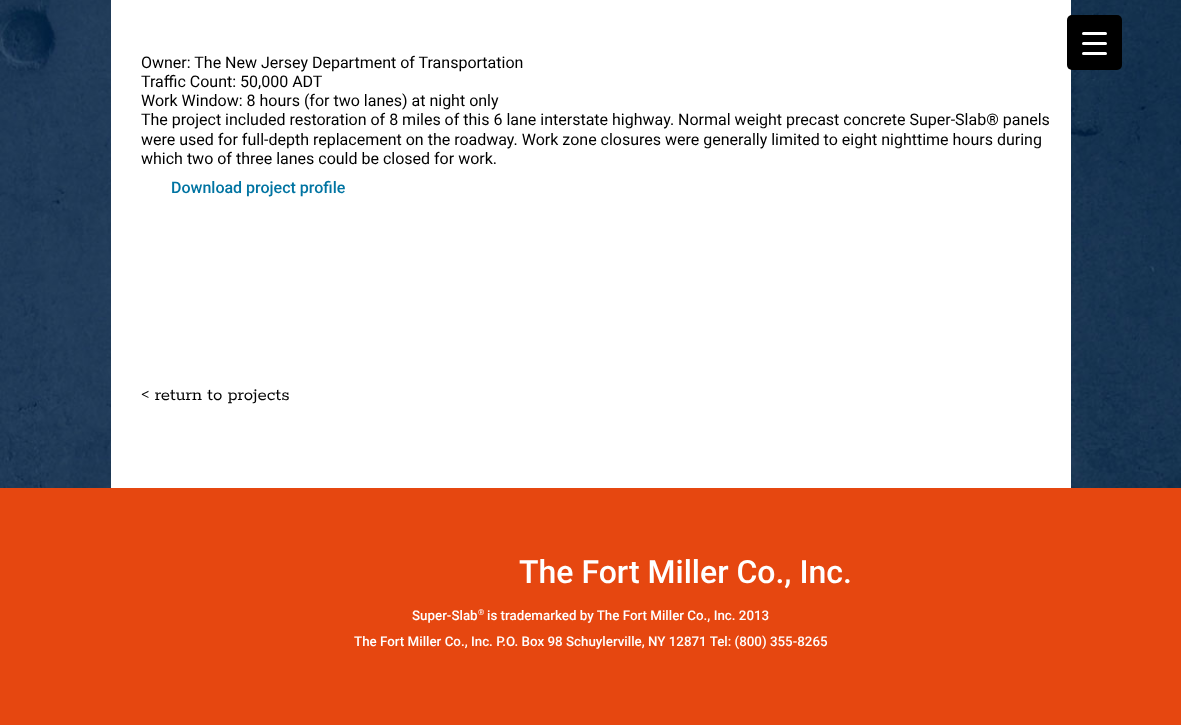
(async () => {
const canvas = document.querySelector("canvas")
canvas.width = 1181
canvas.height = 725
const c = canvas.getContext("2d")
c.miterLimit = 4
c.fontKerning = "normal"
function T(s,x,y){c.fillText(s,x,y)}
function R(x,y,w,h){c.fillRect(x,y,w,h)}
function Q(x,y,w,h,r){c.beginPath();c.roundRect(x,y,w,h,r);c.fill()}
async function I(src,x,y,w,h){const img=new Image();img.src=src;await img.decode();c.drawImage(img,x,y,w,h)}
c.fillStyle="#fff"
R(0,0,1181,725)
await I("1.png",0,0,1181,488)
R(111,0,960,488)
c.fillStyle="#000"
Q(1067,15,55,55,5)
c.fillStyle="#fff"
Q(1082,42,25,3,1.5)
Q(1082,32,25,3,1.5)
Q(1082,52,25,3,1.5)
c.font="16px Roboto"
c.fillStyle="#000"
T("Owner: The New Jersey Department of Transportation",141,68)
T("Traffic Count: 50,000 ADT",141,87)
T("Work Window: 8 hours (for two lanes) at night only",141,106)
T("The project included restoration of 8 miles of this 6 lane interstate highway. Normal weight precast concrete Super-Slab® panels",141,125)
T("were used for full-depth replacement on the roadway. Work zone closures were generally limited to eight nighttime hours during",141,145)
T("which two of three lanes could be closed for work.",141,164)
c.font="500 16px Roboto"
c.fillStyle="#0074a2"
T("Download project profile",171,193)
c.font="18.75px Rokkitt"
c.fillStyle="#000"
T("< return to projects",141,400)
c.fillStyle="#e64710"
R(0,488,1181,237)
c.font="500 32px Roboto"
c.fillStyle="#fff"
T("The Fort Miller Co., Inc.",519,583)
c.font="500 13.35px Roboto"
T("Super-Slab",412,620)
c.font="500 8px Roboto"
T("®",478,615)
c.font="500 13.35px Roboto"
T("is trademarked by The Fort Miller Co., Inc. 2013",487,620)
T("The Fort Miller Co., Inc. P.O. Box 98 Schuylerville, NY 12871 Tel: (800) 355-8265",354,646)
})()
